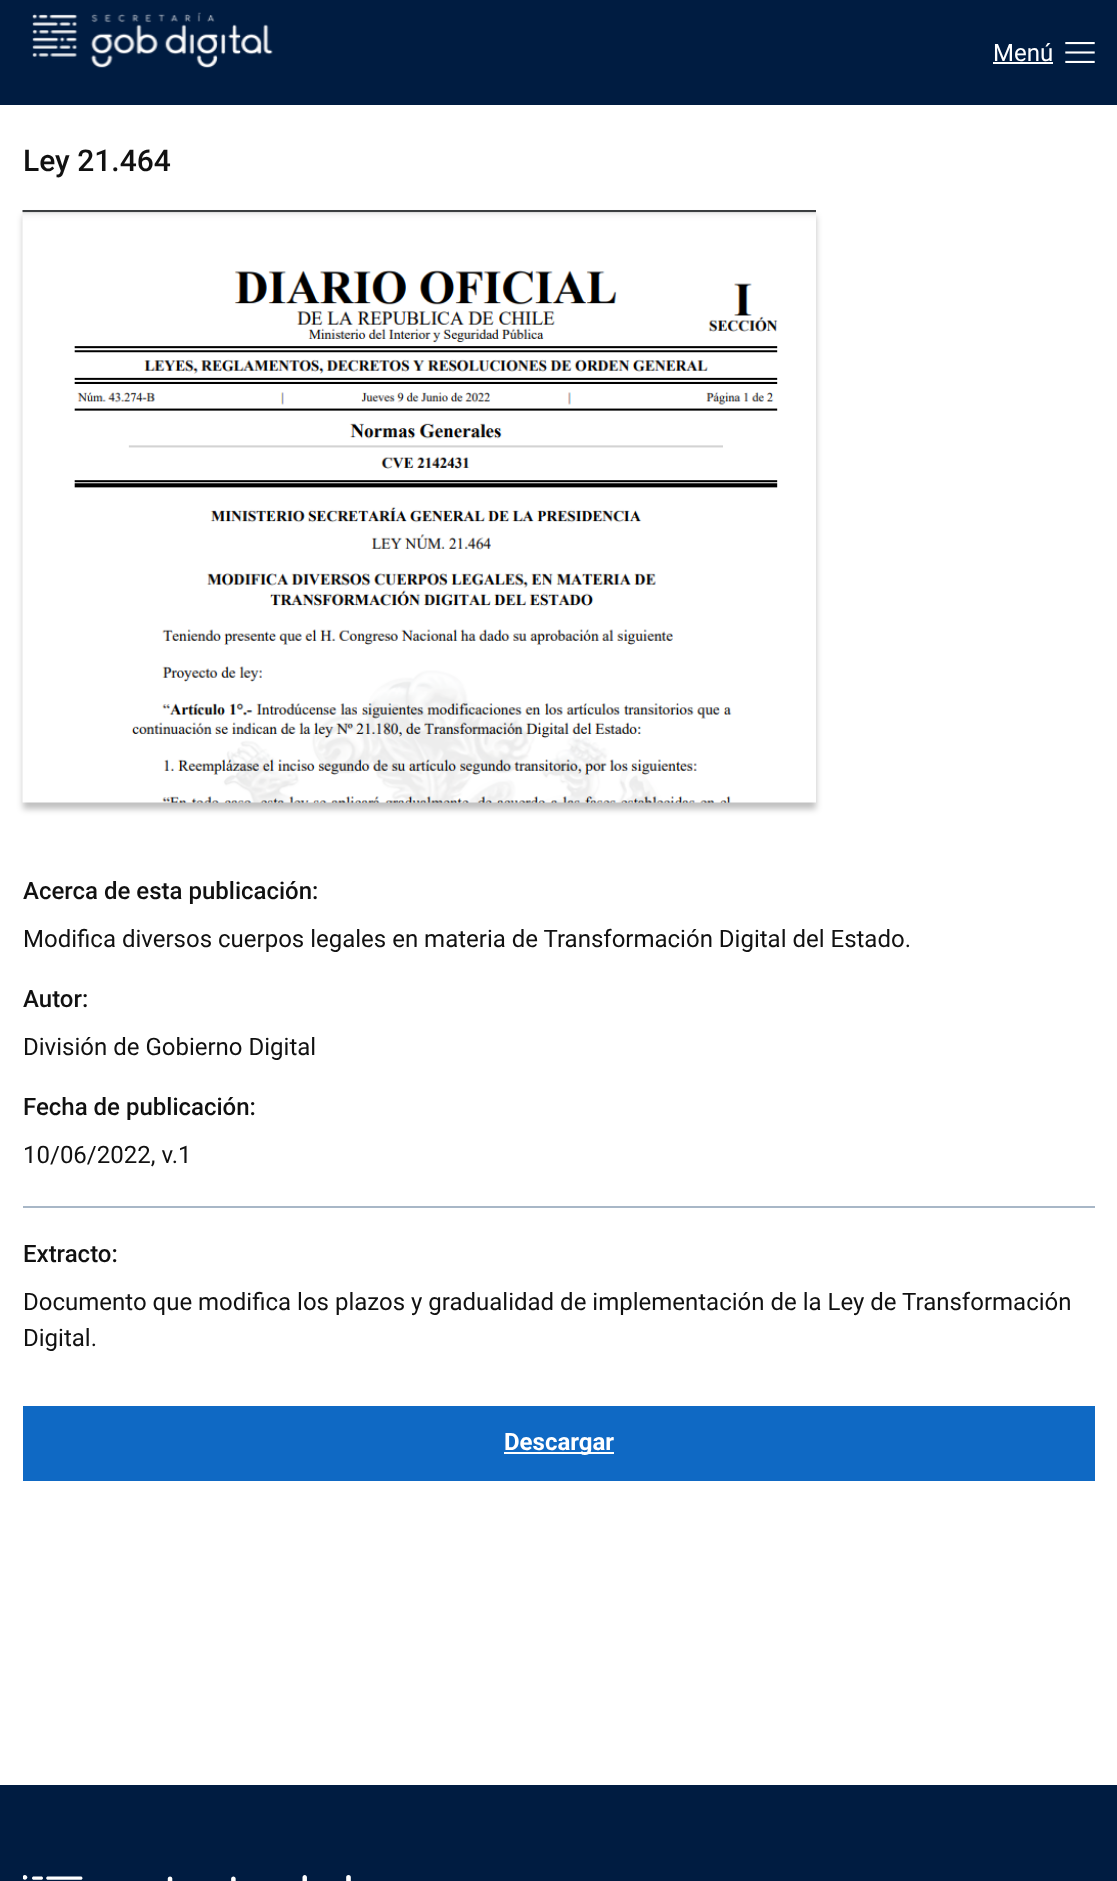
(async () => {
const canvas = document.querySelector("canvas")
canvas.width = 1117
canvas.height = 1881
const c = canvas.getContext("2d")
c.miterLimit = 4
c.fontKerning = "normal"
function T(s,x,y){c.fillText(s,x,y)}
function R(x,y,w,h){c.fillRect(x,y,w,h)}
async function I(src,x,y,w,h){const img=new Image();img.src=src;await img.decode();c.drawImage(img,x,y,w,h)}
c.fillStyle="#fff"
R(0,0,1117,1881)
c.fillStyle="#001c41"
R(0,0,1117,105)
await I("1.png",32,12,241,56)
c.font="24px Roboto"
c.fillStyle="#fff"
T("Menú",993,61)
R(993,62,60,2)
await I("2.png",1065,42,30,21)
c.font="500 30px Roboto"
c.fillStyle="#111"
T("Ley 21.464",23,171)
c.fillStyle="#00000040"
c.filter="blur(3px)"
c.beginPath()
c.rect(23,216,793,593)
c.fill()
c.filter="none"
await I("3.png",22,210,794,593)
c.font="500 24px Roboto"
c.fillStyle="#111"
T("Acerca de esta publicación:",23,899)
c.font="24px Roboto"
T("Modifica diversos cuerpos legales en materia de Transformación Digital del Estado.",23,947)
c.font="500 24px Roboto"
T("Autor:",23,1007)
c.font="24px Roboto"
T("División de Gobierno Digital",23,1055)
c.font="500 24px Roboto"
T("Fecha de publicación:",23,1115)
c.font="24px Roboto"
T("10/06/2022, v.1",23,1163)
c.fillStyle="#a8b7c7"
R(23,1206,1072,2)
c.font="500 24px Roboto"
c.fillStyle="#111"
T("Extracto:",23,1262)
c.font="24px Roboto"
T("Documento que modifica los plazos y gradualidad de implementación de la Ley de Transformación",23,1310)
T("Digital.",23,1346)
c.fillStyle="#0f69c4"
R(23,1406,1072,75)
c.fillStyle="#fff"
R(504,1452,110,2)
c.font="bold 24px Roboto"
T("Descargar",504,1450)
c.fillStyle="#001c41"
R(0,1785,1117,96)
await I("4.png",23,1875,328,6)
})()
